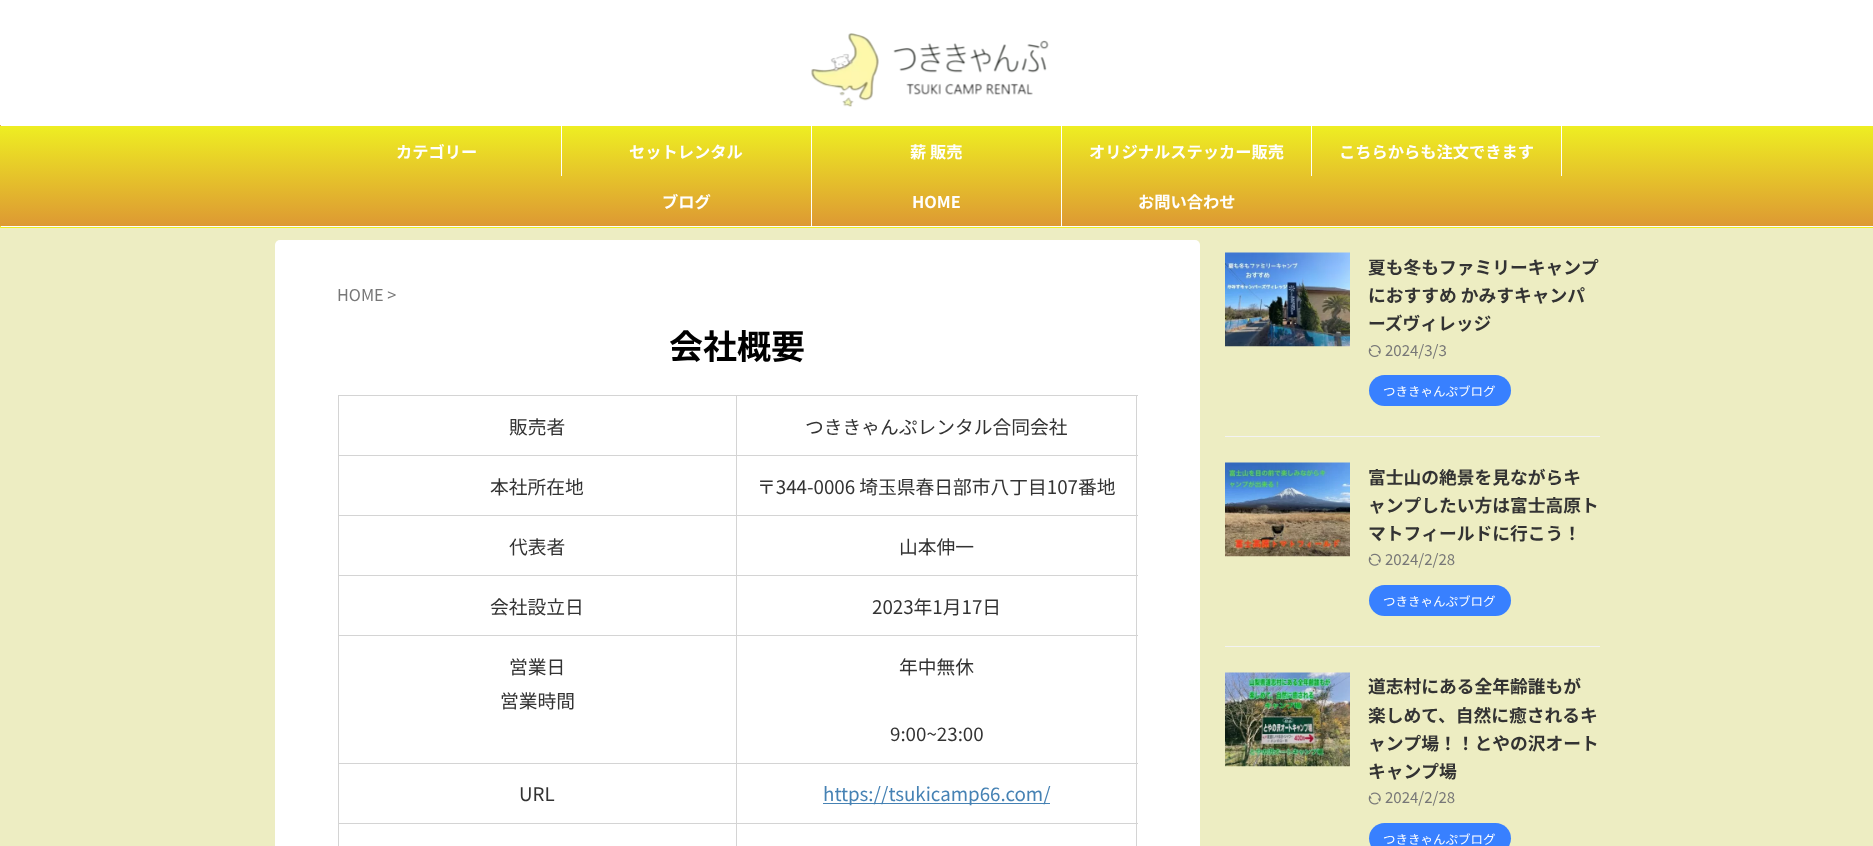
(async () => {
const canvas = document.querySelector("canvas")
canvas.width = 1873
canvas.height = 846
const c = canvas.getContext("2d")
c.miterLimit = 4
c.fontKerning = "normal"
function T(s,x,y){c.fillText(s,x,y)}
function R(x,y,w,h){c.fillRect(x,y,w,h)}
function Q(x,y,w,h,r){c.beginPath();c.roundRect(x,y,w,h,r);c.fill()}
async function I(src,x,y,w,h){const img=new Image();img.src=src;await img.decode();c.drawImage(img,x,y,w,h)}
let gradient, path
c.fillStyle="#ededc2"
R(0,0,1873,846)
c.fillStyle="#fff"
R(0,0,1873,125)
await I("1.png",811,33,238,74)
gradient = c.createLinearGradient(937,26,937,126)
gradient.addColorStop(0,"#ee2")
gradient.addColorStop(1,"#d93")
c.fillStyle = gradient
path = new Path2D("M1 125h1872c.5 0 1 .5 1 1h-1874c0-.5 .5-1 1-1z")
c.fill(path)
gradient = c.createLinearGradient(937,126,937,226)
gradient.addColorStop(0,"#ee2")
gradient.addColorStop(1,"#d93")
c.fillStyle = gradient
R(0,126,1873,100)
gradient = c.createLinearGradient(937,226,937,326)
gradient.addColorStop(0,"#ee2")
gradient.addColorStop(1,"#d93")
c.fillStyle = gradient
path = new Path2D("M0 226h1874v1c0 .5-.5 1-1 1h-1872c-.5 0-1-.5-1-1z")
c.fill(path)
c.fillStyle="#fff"
R(1,125,1872,1)
R(1,226,1872,1)
R(561,126,1,50)
c.font="bold 16.25px Noto Sans JP"
T("カテゴリー",396,158)
R(811,126,1,100)
T("セットレンタル",629,158)
R(1061,126,1,100)
T("薪 販売",910,158)
R(1311,126,1,50)
T("オリジナルステッカー販売",1089,158)
R(1561,126,1,50)
T("こちらからも注文できます",1339,158)
T("ブログ",662,208)
T("HOME",912,208)
T("お問い合わせ",1138,208)
Q(275,240,925,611,5)
c.font="16.25px Noto Sans JP"
c.fillStyle="#777"
T("HOME >",337,301)
c.font="bold 34px Noto Sans JP"
c.fillStyle="#000"
T("会社概要",669,359)
c.fillStyle="#d4d4d4"
R(338,395,800,1)
R(1136,395,1,451)
R(736,823,1,23)
R(736,823,402,1)
R(736,763,1,61)
R(736,763,402,1)
R(736,635,1,129)
R(736,635,402,1)
R(736,575,1,61)
R(736,575,402,1)
R(736,515,1,61)
R(736,515,402,1)
R(736,455,1,61)
R(736,455,402,1)
R(736,395,1,61)
R(338,823,1,23)
R(338,823,400,1)
R(338,763,1,61)
R(338,763,400,1)
R(338,635,1,129)
R(338,635,400,1)
R(338,575,1,61)
R(338,575,400,1)
R(338,515,1,61)
R(338,515,400,1)
R(338,455,1,61)
R(338,455,400,1)
R(338,395,1,61)
c.font="18.75px Noto Sans JP"
c.fillStyle="#333"
T("販売者",509,434)
T("つききゃんぷレンタル合同会社",805,434)
T("本社所在地",490,494)
T("〒344-0006 埼玉県春日部市八丁目107番地",757,494)
T("代表者",509,554)
T("山本伸一",899,554)
T("会社設立日",490,614)
T("2023年1月17日",872,614)
T("営業日",509,674)
T("営業時間",500,708)
T("年中無休",899,674)
T("9:00~23:00",890,741)
T("URL",519,801)
c.fillStyle="#4682b4"
R(823,803,227,1)
T("https://tsukicamp66.com/",823,801)
c.fillStyle="#f3f3f3"
R(1225,436,375,1)
await I("2.png",1225,252,125,95)
c.font="bold 17.75px Noto Sans JP"
c.fillStyle="#333"
T("夏も冬もファミリーキャンプ",1368,274)
T("におすすめ かみすキャンパ",1368,302)
T("ーズヴィレッジ",1368,330)
await I("3.png",1368,345,13,12)
c.font="15px Noto Sans JP"
c.fillStyle="#777"
T("2024/3/3",1385,356)
c.fillStyle="#3880ff"
Q(1369,375,142,31,15.5)
c.font="12.5px Noto Sans JP"
c.fillStyle="#fff"
T("つききゃんぷブログ",1383,396)
c.fillStyle="#f3f3f3"
R(1225,646,375,1)
await I("4.png",1225,462,125,95)
c.font="bold 17.75px Noto Sans JP"
c.fillStyle="#333"
T("富士山の絶景を見ながらキ",1368,484)
T("ャンプしたい方は富士高原ト",1368,512)
T("マトフィールドに行こう！",1368,540)
await I("5.png",1368,553,13,13)
c.font="15px Noto Sans JP"
c.fillStyle="#777"
T("2024/2/28",1385,565)
c.fillStyle="#3880ff"
Q(1369,585,142,31,15.5)
c.font="12.5px Noto Sans JP"
c.fillStyle="#fff"
T("つききゃんぷブログ",1383,606)
await I("6.png",1225,672,125,95)
c.font="bold 17.75px Noto Sans JP"
c.fillStyle="#333"
T("道志村にある全年齢誰もが",1368,693)
T("楽しめて、自然に癒されるキ",1368,722)
T("ャンプ場！！とやの沢オート",1368,750)
T("キャンプ場",1368,778)
await I("7.png",1368,792,13,13)
c.font="15px Noto Sans JP"
c.fillStyle="#777"
T("2024/2/28",1385,803)
c.fillStyle="#3880ff"
Q(1369,823,142,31,15.5)
c.font="12.5px Noto Sans JP"
c.fillStyle="#fff"
T("つききゃんぷブログ",1383,844)
})()
